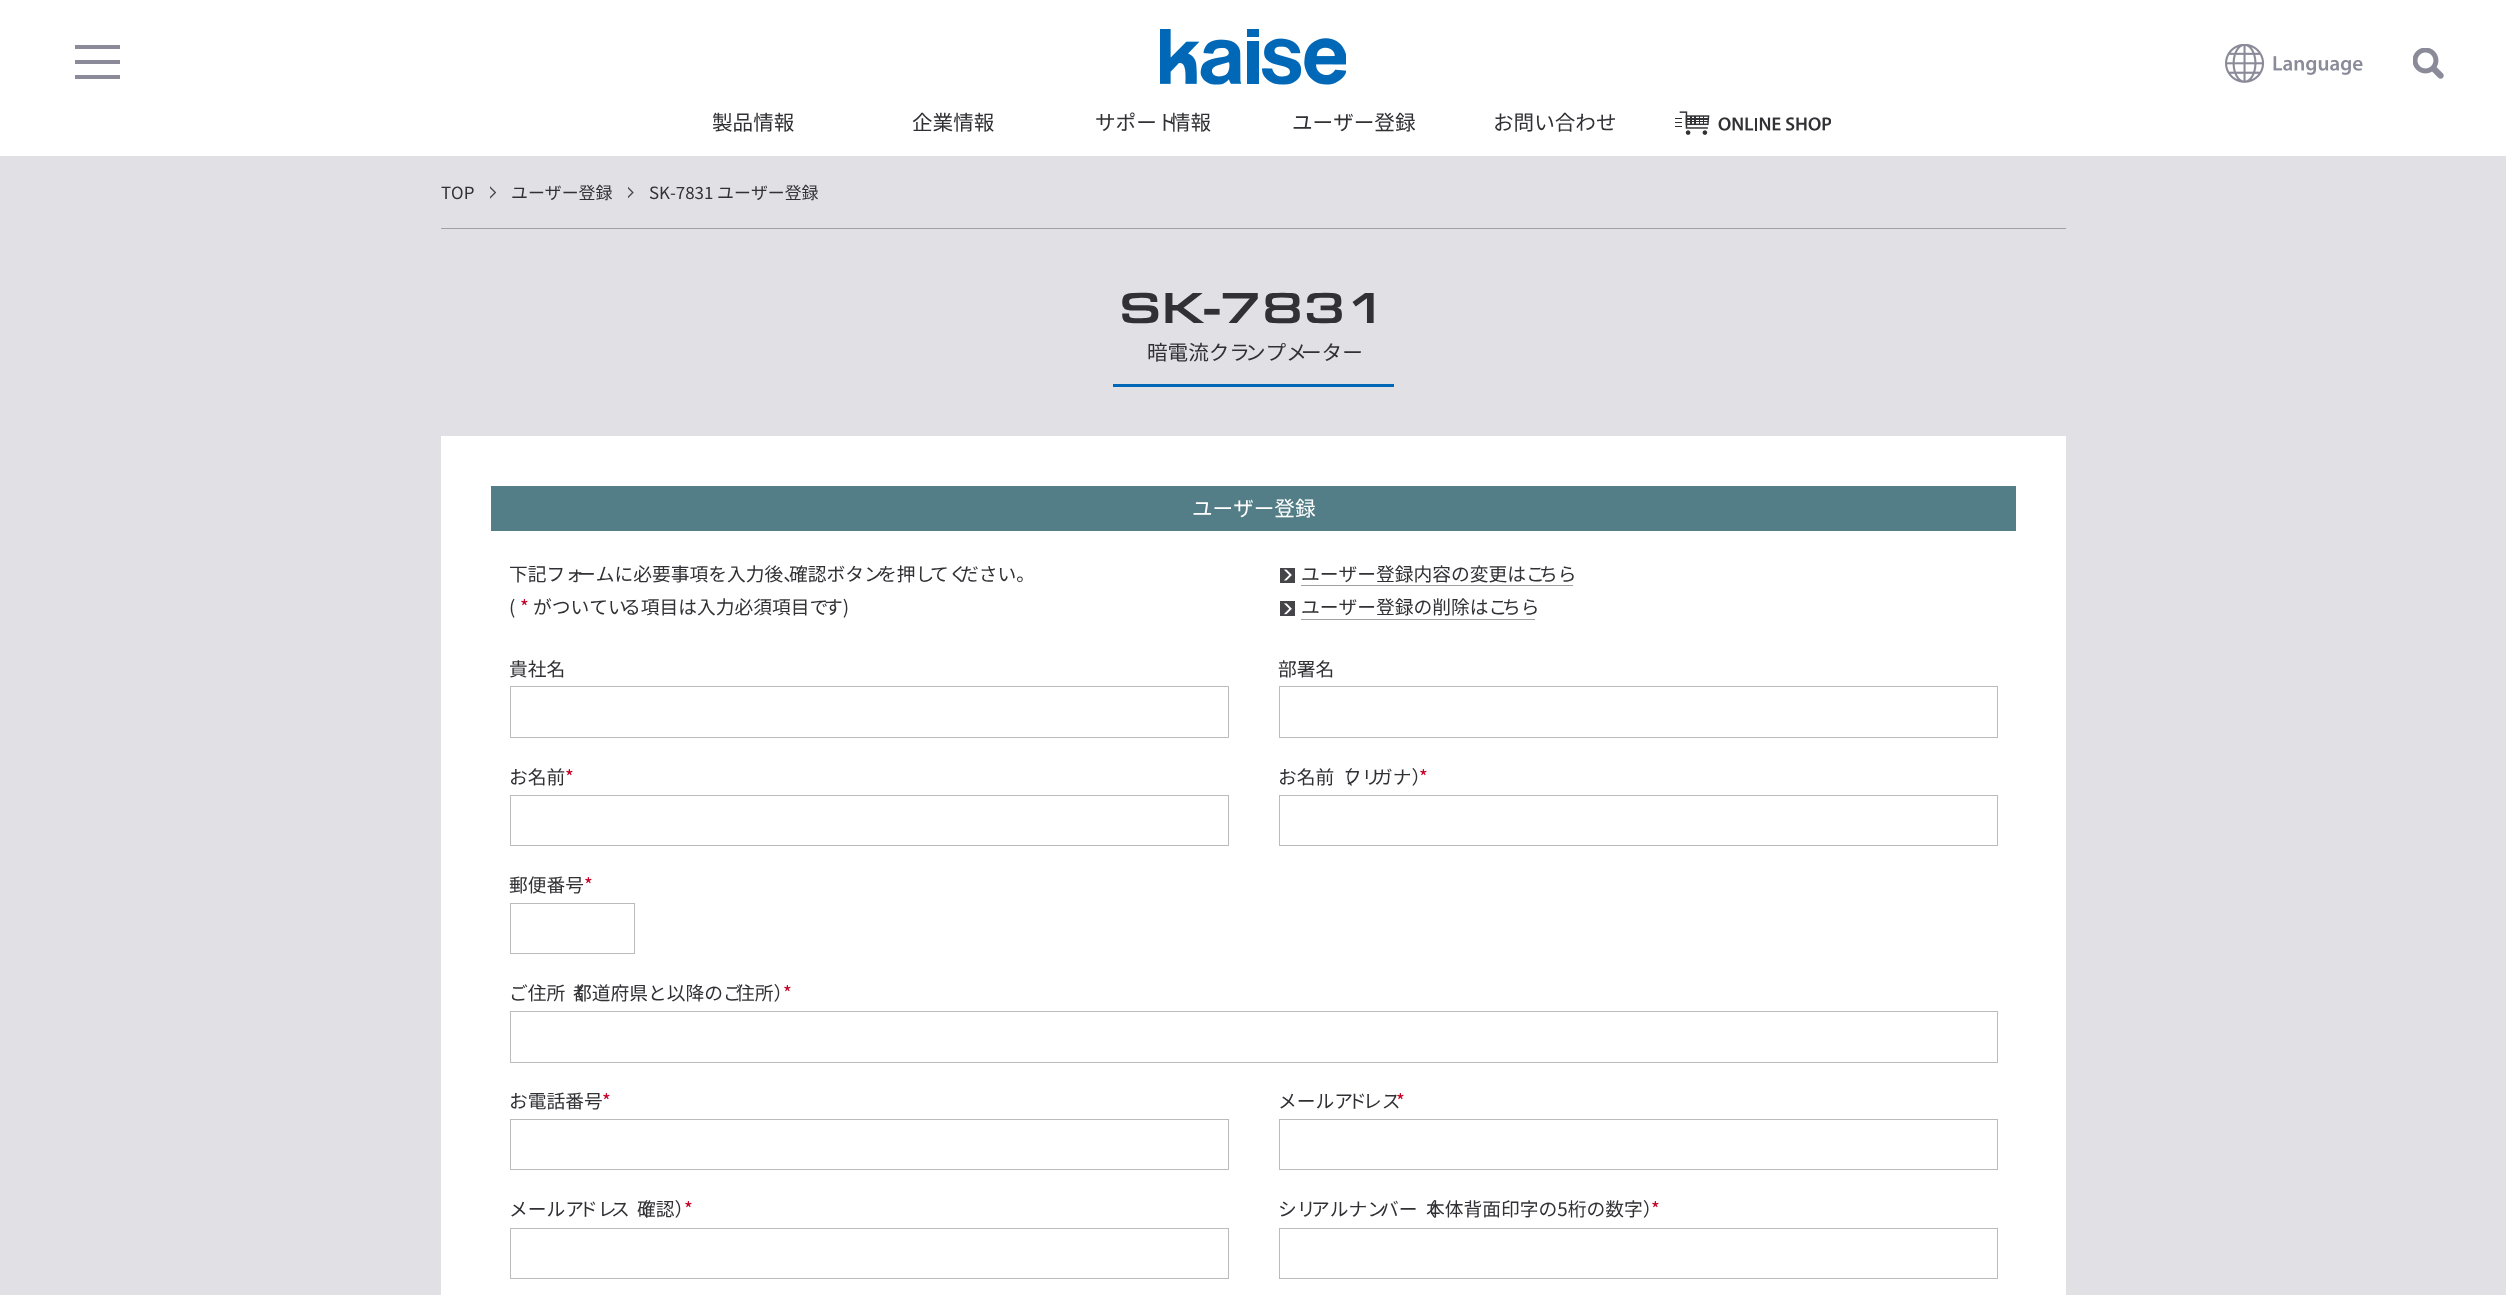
(async () => {
const canvas = document.querySelector("canvas")
canvas.width = 2506
canvas.height = 1295
const c = canvas.getContext("2d")
c.miterLimit = 4
c.fontKerning = "none"
function T(s,x,y){c.fillText(s,x,y)}
function R(x,y,w,h){c.fillRect(x,y,w,h)}
async function I(src,x,y,w,h){const img=new Image();img.src=src;await img.decode();c.drawImage(img,x,y,w,h)}
c.fillStyle="#e1e1e5"
R(0,0,2506,1295)
c.fillStyle="#fff"
R(0,0,2506,156)
c.fillStyle="#8a8a99"
R(75,45,45,4)
R(75,60,45,4)
R(75,75,45,4)
await I("1.png",1160,29,186,56)
await I("2.png",2225,44,138,39)
await I("3.png",2413,48,31,31)
c.font="100 20.6px Noto Sans JP"
c.fillStyle="#313135"
T("製品情報",712,130)
T("企業情報",912,130)
T("サポート",1095,130)
T("情報",1170,130)
T("ユーザー登録",1292,130)
T("お問い合わせ",1493,130)
await I("4.png",1675,111,156,24)
c.fillStyle="#a1a1a5"
R(441,228,1625,1)
c.font="100 16.9px Noto Sans JP"
c.fillStyle="#313135"
T("TOP",441,199)
await I("5.png",490,186,6,13)
T("ユーザー登録",511,199)
await I("6.png",628,186,6,13)
c.font="100 16.9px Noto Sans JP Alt"
T("SK-7831 ユーザー登録",649,199)
c.fillStyle="#0068b7"
R(1113,384,281,3)
c.font="500 45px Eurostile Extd"
c.fillStyle="#313135"
T("SK-7831",1119,323)
c.font="100 20.6px Noto Sans JP"
T("暗電流クラ",1147,360)
T("ンプメ",1245,360)
T("ーター",1301,360)
c.fillStyle="#fff"
R(441,436,1625,859)
c.fillStyle="#547e87"
R(491,486,1525,45)
c.fillStyle="#fff"
T("ユーザー登録",1192,516)
c.font="100 18.75px Noto Sans JP"
c.fillStyle="#313135"
T("下記フォ",509,581)
T("ームに必要事項を入力後、",577,581)
T("確認ボタン",789,581)
T("を押し",878,581)
T("てく",930,581)
T("ださい。",960,581)
T("(",509,614)
c.fillStyle="#c70026"
T("*",520,614)
c.fillStyle="#313135"
T("がついてい",533,614)
T("る項目は入力必須項目で",622,614)
T("す)",824,614)
await I("7.png",1280,568,15,15)
T("ユーザー登録内容の変更はこ",1301,581)
T("ちら",1539,581)
c.fillStyle="#a1a1a5"
R(1301,585,272,1)
await I("8.png",1280,601,15,15)
c.fillStyle="#313135"
T("ユーザー登録の削除はこ",1301,614)
T("ちら",1502,614)
c.fillStyle="#a1a1a5"
R(1301,619,234,1)
c.fillStyle="#313135"
T("貴社名",509,676)
c.strokeStyle="#bbb"
c.strokeRect(510.5,686.5,718,51)
T("部署名",1278,676)
c.strokeRect(1279.5,686.5,718,51)
T("お名前",509,784)
c.fillStyle="#c70026"
T("*",565,784)
c.strokeRect(510.5,795.5,718,50)
c.fillStyle="#313135"
T("お名前（",1278,784)
T("フリ",1343,784)
T("ガナ）",1374,784)
c.fillStyle="#c70026"
T("*",1419,784)
c.strokeRect(1279.5,795.5,718,50)
c.fillStyle="#313135"
T("郵便番号",509,892)
c.fillStyle="#c70026"
T("*",584,892)
c.strokeRect(510.5,903.5,124,50)
c.fillStyle="#313135"
T("ご住所（",509,1000)
T("都道府県と以降のご",573,1000)
T("住所）",736,1000)
c.fillStyle="#c70026"
T("*",783,1000)
c.strokeRect(510.5,1011.5,1487,51)
c.fillStyle="#313135"
T("お電話番号",509,1108)
c.fillStyle="#c70026"
T("*",602,1108)
c.strokeRect(510.5,1119.5,718,50)
c.fillStyle="#313135"
T("メールア",1278,1108)
T("ド",1348,1108)
T("レス",1363,1108)
c.fillStyle="#c70026"
T("*",1396,1108)
c.strokeRect(1279.5,1119.5,718,50)
c.fillStyle="#313135"
T("メールア",509,1216)
T("ドレ",579,1216)
T("ス（",611,1216)
T("確認）",637,1216)
c.fillStyle="#c70026"
T("*",684,1216)
c.strokeRect(510.5,1228.5,718,50)
c.fillStyle="#313135"
T("シリ",1278,1216)
T("アルナン",1311,1216)
T("バー（",1380,1216)
T("本体背面印字の5桁の数字）",1426,1216)
c.fillStyle="#c70026"
T("*",1651,1216)
c.strokeRect(1279.5,1228.5,718,50)
})()
